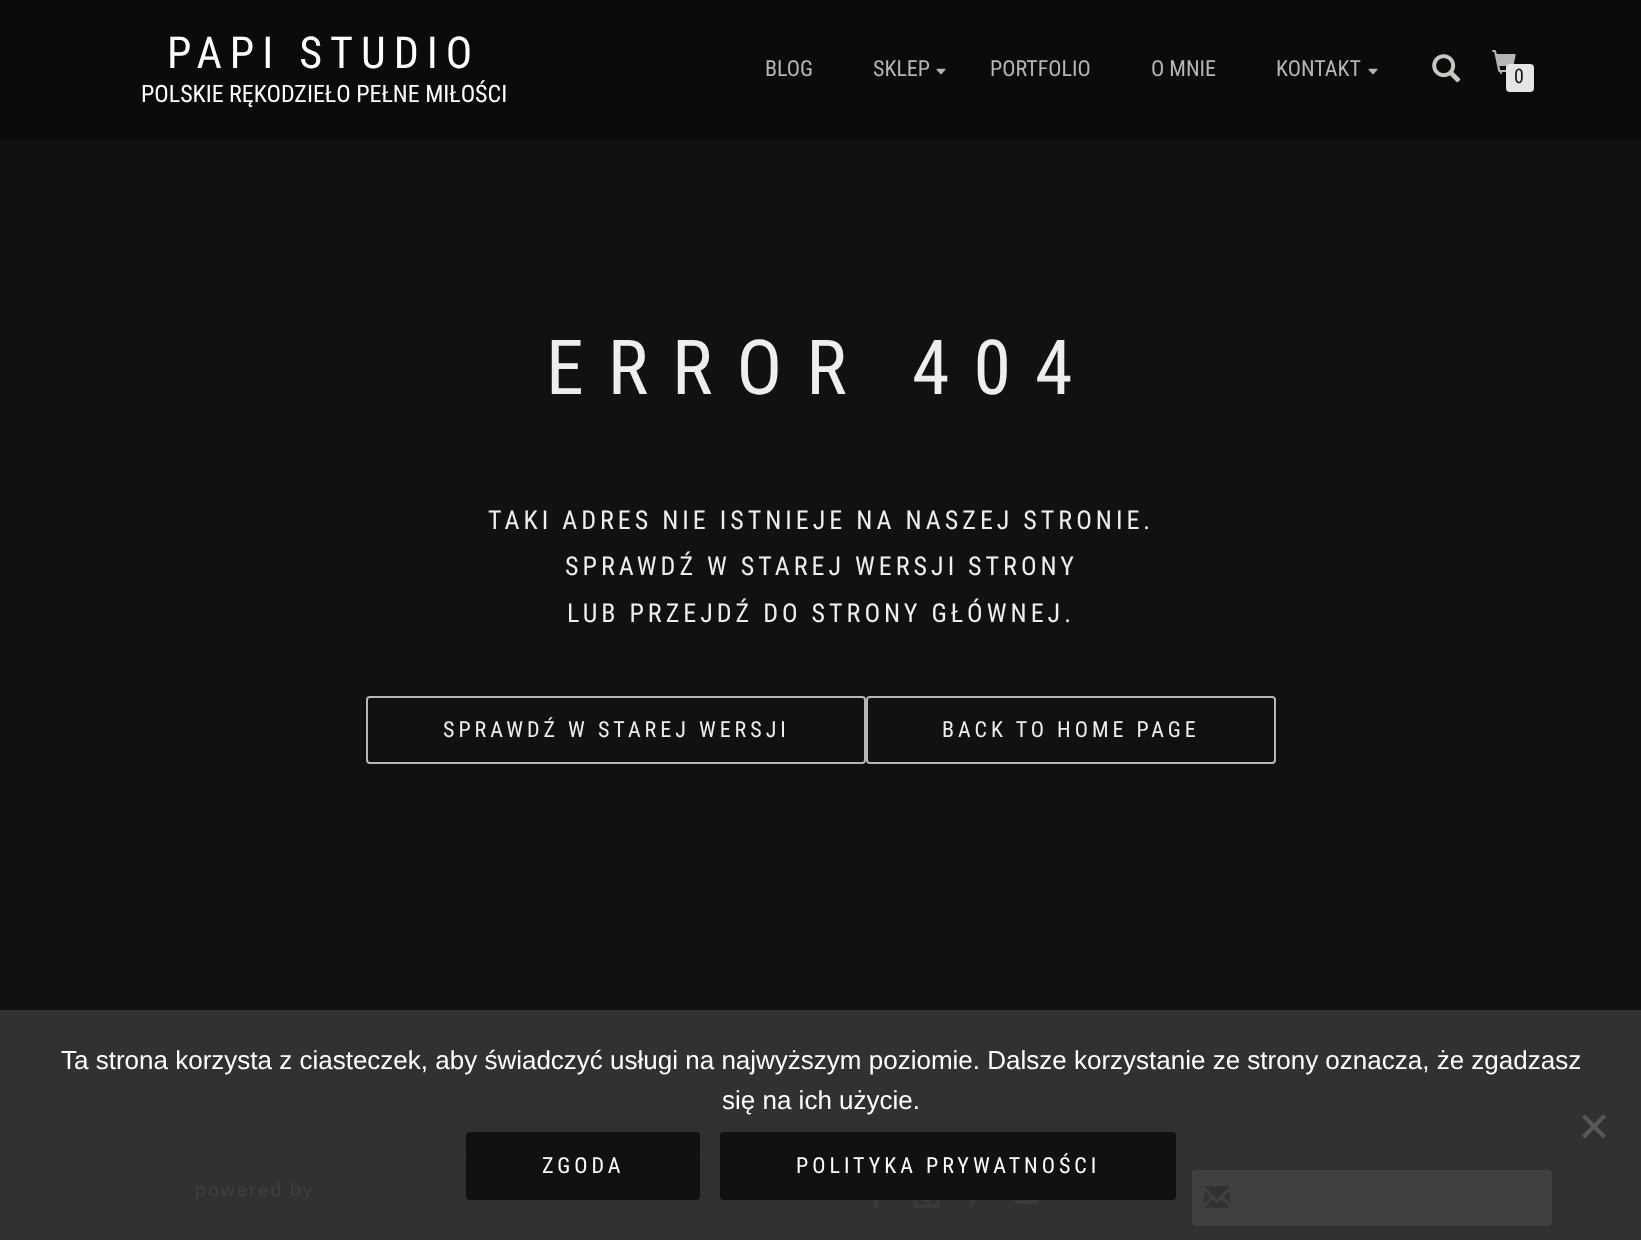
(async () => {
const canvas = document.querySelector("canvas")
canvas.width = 1641
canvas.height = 1240
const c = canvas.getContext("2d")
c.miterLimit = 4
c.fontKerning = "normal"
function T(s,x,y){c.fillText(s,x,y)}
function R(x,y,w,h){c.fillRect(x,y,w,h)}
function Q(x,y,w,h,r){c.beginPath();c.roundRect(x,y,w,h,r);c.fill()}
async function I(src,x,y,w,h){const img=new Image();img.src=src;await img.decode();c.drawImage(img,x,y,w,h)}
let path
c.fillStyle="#111"
R(0,0,1641,1240)
c.fillStyle="#0b0b0b"
R(0,0,1641,140)
c.letterSpacing="8px"
c.font="44px Roboto Condensed"
c.fillStyle="#fff"
T("PAPI STUDIO",167,68)
c.letterSpacing="0px"
c.font="24px Roboto Condensed"
T("POLSKIE RĘKODZIEŁO PEŁNE MIŁOŚCI",141,102)
c.font="22px Roboto Condensed"
c.fillStyle="#b6b6b6"
T("BLOG",765,76)
T("SKLEP",873,76)
await I("1.png",936,68,10,7)
T("PORTFOLIO",990,76)
T("O MNIE",1151,76)
T("KONTAKT",1276,76)
await I("1.png",1368,68,10,7)
await I("2.png",1432,54,29,29)
await I("3.png",1492,50,24,24)
c.fillStyle="#e5e5e5"
Q(1506,64,28,28,4)
c.font="20px Roboto Condensed"
c.fillStyle="#111"
T("0",1514,83)
c.fillStyle="#313131"
R(0,1010,1641,142)
c.letterSpacing="24px"
c.font="76px Roboto Condensed"
c.fillStyle="#eee"
T("ERROR 404",546,394)
c.letterSpacing="4px"
c.font="26px Roboto Condensed"
T("TAKI ADRES NIE ISTNIEJE NA NASZEJ STRONIE.",488,529)
T("SPRAWDŹ W STAREJ WERSJI STRONY",565,575)
T("LUB PRZEJDŹ DO STRONY GŁÓWNEJ.",567,622)
c.beginPath()
c.roundRect(367,697,498,66,3)
c.strokeStyle="#b7b7b7"
c.lineWidth=2
c.stroke()
c.font="22px Roboto Condensed"
T("SPRAWDŹ W STAREJ WERSJI",443,737)
c.beginPath()
c.roundRect(867,697,408,66,3)
c.stroke()
T("BACK TO HOME PAGE",942,737)
c.letterSpacing="0px"
c.font="26px Liberation Sans"
c.fillStyle="#fff"
T("Ta strona korzysta z ciasteczek, aby świadczyć usługi na najwyższym poziomie. Dalsze korzystanie ze strony oznacza, że zgadzasz",61,1069)
T("się na ich użycie.",722,1109)
c.fillStyle="#585858"
path = new Path2D("M1603 1114.5l3 2.5l-21 21.5l-3-3z")
c.fill(path)
path = new Path2D("M1582 1117l3-2.5l21 21l-3 3z")
c.fill(path)
c.fillStyle="#313131"
R(0,1154,1641,86)
c.fillStyle="#323232"
R(0,1152,1641,2)
c.fillStyle="#111"
Q(466,1132,234,68,4)
c.letterSpacing="4px"
c.font="22px Roboto Condensed"
c.fillStyle="#fff"
T("ZGODA",542,1173)
c.fillStyle="#111"
Q(720,1132,456,68,4)
c.fillStyle="#fff"
T("POLITYKA PRYWATNOŚCI",796,1173)
c.letterSpacing="2px"
c.font="18px Open Sans"
c.fillStyle="#414141"
T("powered by",195,1196)
await I("4.png",873,1200,6,8)
await I("5.png",914,1200,26,8)
await I("6.png",971,1200,11,8)
await I("7.png",1014,1200,26,4)
c.fillStyle="#404040"
Q(1192,1170,360,56,4)
await I("8.png",1204,1186,26,22)
})()
